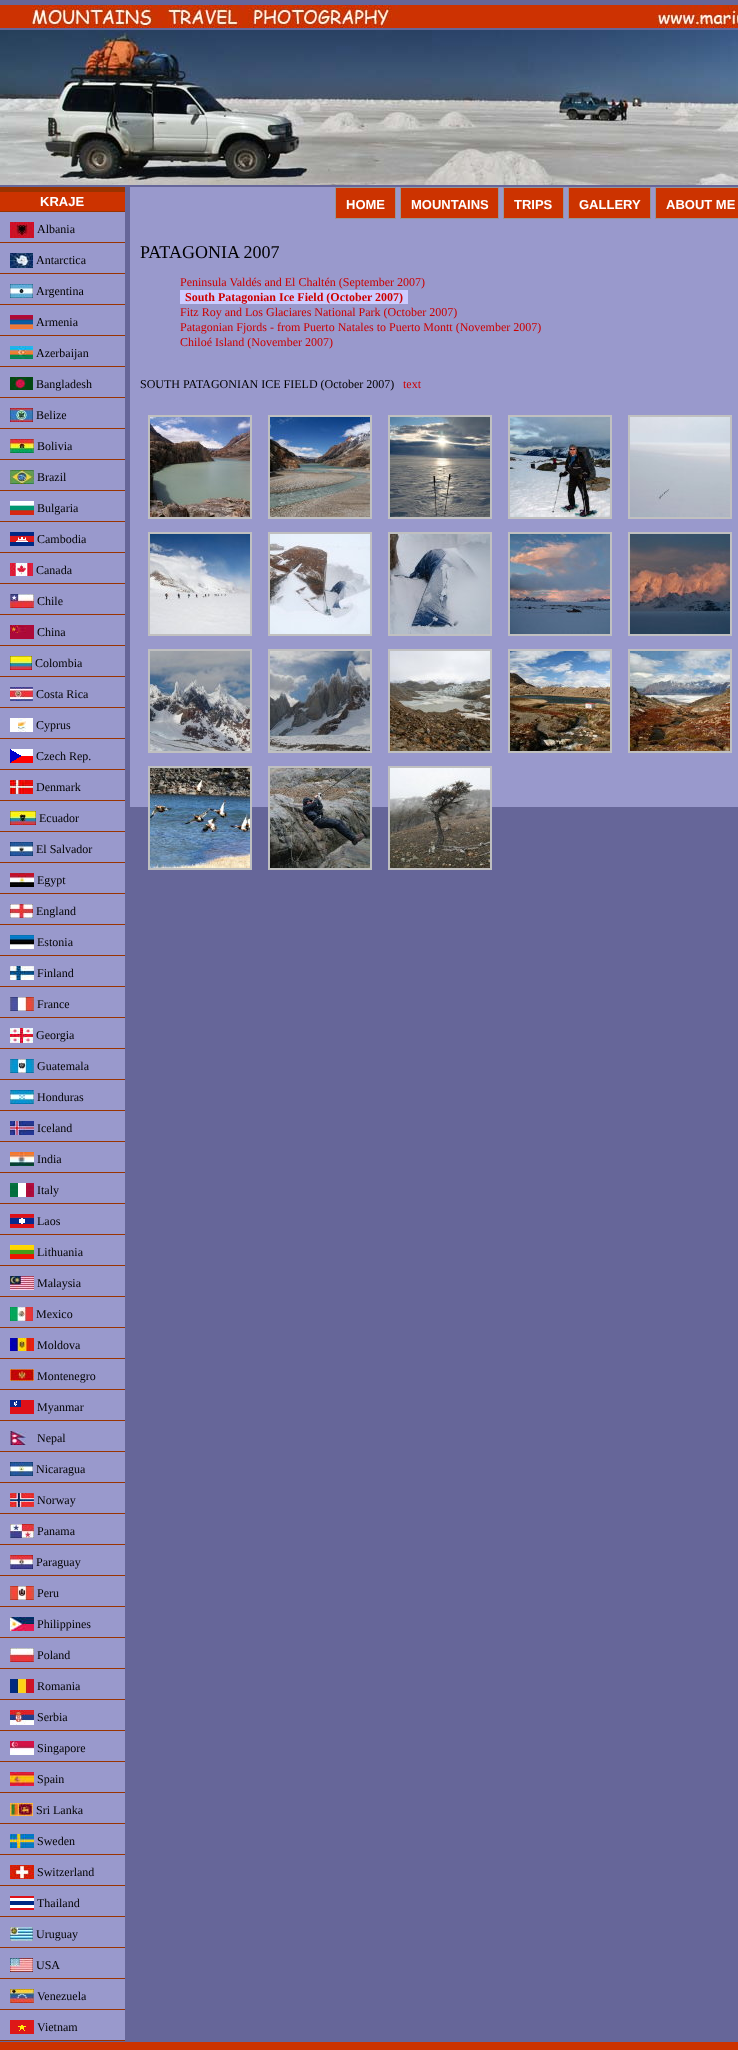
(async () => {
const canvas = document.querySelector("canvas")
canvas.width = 738
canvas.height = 2050
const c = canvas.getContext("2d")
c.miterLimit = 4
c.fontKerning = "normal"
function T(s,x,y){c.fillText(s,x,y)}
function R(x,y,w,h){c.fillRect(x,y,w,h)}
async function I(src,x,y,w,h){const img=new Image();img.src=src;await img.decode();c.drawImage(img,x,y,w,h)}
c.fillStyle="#669"
R(0,0,738,2050)
await I("1.png",0,5,738,23)
await I("2.png",0,30,738,155)
c.fillStyle="#99c"
R(0,212,125,1828)
c.fillStyle="#930"
R(0,211,125,1)
c.fillStyle="#c30"
R(0,192,125,19)
c.fillStyle="#930"
R(0,187,125,5)
c.font="bold 13px Liberation Sans"
c.fillStyle="#fff"
T("KRAJE",40,206)
c.fillStyle="#930"
R(0,242,125,1)
await I("3.png",10,222,24,16)
c.font="12px Liberation Serif"
c.fillStyle="#000"
T("Albania",37,233)
c.fillStyle="#930"
R(0,273,125,1)
await I("4.png",10,253,23,15)
c.fillStyle="#000"
T("Antarctica",36,264)
c.fillStyle="#930"
R(0,304,125,1)
await I("5.png",10,284,23,14)
c.fillStyle="#000"
T("Argentina",36,295)
c.fillStyle="#930"
R(0,335,125,1)
await I("6.png",10,315,23,14)
c.fillStyle="#000"
T("Armenia",36,326)
c.fillStyle="#930"
R(0,366,125,1)
await I("7.png",10,346,23,13)
c.fillStyle="#000"
T("Azerbaijan",36,357)
c.fillStyle="#930"
R(0,397,125,1)
await I("8.png",10,377,23,13)
c.fillStyle="#000"
T("Bangladesh",36,388)
c.fillStyle="#930"
R(0,428,125,1)
await I("9.png",10,408,23,14)
c.fillStyle="#000"
T("Belize",36,419)
c.fillStyle="#930"
R(0,459,125,1)
await I("10.png",10,439,24,14)
c.fillStyle="#000"
T("Bolivia",37,450)
c.fillStyle="#930"
R(0,490,125,1)
await I("11.png",10,470,24,14)
c.fillStyle="#000"
T("Brazil",37,481)
c.fillStyle="#930"
R(0,521,125,1)
await I("12.png",10,501,24,14)
c.fillStyle="#000"
T("Bulgaria",37,512)
c.fillStyle="#930"
R(0,552,125,1)
await I("13.png",10,532,24,14)
c.fillStyle="#000"
T("Cambodia",37,543)
c.fillStyle="#930"
R(0,583,125,1)
await I("14.png",10,563,23,13)
c.fillStyle="#000"
T("Canada",36,574)
c.fillStyle="#930"
R(0,614,125,1)
await I("15.png",10,594,24,14)
c.fillStyle="#000"
T("Chile",37,605)
c.fillStyle="#930"
R(0,645,125,1)
await I("16.png",10,625,24,14)
c.fillStyle="#000"
T("China",37,636)
c.fillStyle="#930"
R(0,676,125,1)
await I("17.png",10,656,22,14)
c.fillStyle="#000"
T("Colombia",35,667)
c.fillStyle="#930"
R(0,707,125,1)
await I("18.png",10,687,23,14)
c.fillStyle="#000"
T("Costa Rica",36,698)
c.fillStyle="#930"
R(0,738,125,1)
await I("19.png",10,718,23,14)
c.fillStyle="#000"
T("Cyprus",36,729)
c.fillStyle="#930"
R(0,769,125,1)
await I("20.png",10,749,23,14)
c.fillStyle="#000"
T("Czech Rep.",36,760)
c.fillStyle="#930"
R(0,800,125,1)
await I("21.png",10,780,23,14)
c.fillStyle="#000"
T("Denmark",36,791)
c.fillStyle="#930"
R(0,831,125,1)
await I("22.png",10,811,26,14)
c.fillStyle="#000"
T("Ecuador",39,822)
c.fillStyle="#930"
R(0,862,125,1)
await I("23.png",10,842,23,14)
c.fillStyle="#000"
T("El Salvador",36,853)
c.fillStyle="#930"
R(0,893,125,1)
await I("24.png",10,873,24,14)
c.fillStyle="#000"
T("Egypt",37,884)
c.fillStyle="#930"
R(0,924,125,1)
await I("25.png",10,904,23,14)
c.fillStyle="#000"
T("England",36,915)
c.fillStyle="#930"
R(0,955,125,1)
await I("26.png",10,935,24,14)
c.fillStyle="#000"
T("Estonia",37,946)
c.fillStyle="#930"
R(0,986,125,1)
await I("27.png",10,966,24,14)
c.fillStyle="#000"
T("Finland",37,977)
c.fillStyle="#930"
R(0,1017,125,1)
await I("28.png",10,997,24,14)
c.fillStyle="#000"
T("France",37,1008)
c.fillStyle="#930"
R(0,1048,125,1)
await I("29.png",10,1028,23,15)
c.fillStyle="#000"
T("Georgia",36,1039)
c.fillStyle="#930"
R(0,1079,125,1)
await I("30.png",10,1059,24,14)
c.fillStyle="#000"
T("Guatemala",37,1070)
c.fillStyle="#930"
R(0,1110,125,1)
await I("31.png",10,1090,24,14)
c.fillStyle="#000"
T("Honduras",37,1101)
c.fillStyle="#930"
R(0,1141,125,1)
await I("32.png",10,1121,24,14)
c.fillStyle="#000"
T("Iceland",37,1132)
c.fillStyle="#930"
R(0,1172,125,1)
await I("33.png",10,1152,24,14)
c.fillStyle="#000"
T("India",37,1163)
c.fillStyle="#930"
R(0,1203,125,1)
await I("34.png",10,1183,24,14)
c.fillStyle="#000"
T("Italy",37,1194)
c.fillStyle="#930"
R(0,1234,125,1)
await I("35.png",10,1214,24,14)
c.fillStyle="#000"
T("Laos",37,1225)
c.fillStyle="#930"
R(0,1265,125,1)
await I("36.png",10,1245,24,14)
c.fillStyle="#000"
T("Lithuania",37,1256)
c.fillStyle="#930"
R(0,1296,125,1)
await I("37.png",10,1276,24,14)
c.fillStyle="#000"
T("Malaysia",37,1287)
c.fillStyle="#930"
R(0,1327,125,1)
await I("38.png",10,1307,23,14)
c.fillStyle="#000"
T("Mexico",36,1318)
c.fillStyle="#930"
R(0,1358,125,1)
await I("39.png",10,1338,24,13)
c.fillStyle="#000"
T("Moldova",37,1349)
c.fillStyle="#930"
R(0,1389,125,1)
await I("40.png",10,1369,24,12)
c.fillStyle="#000"
T("Montenegro",37,1380)
c.fillStyle="#930"
R(0,1420,125,1)
await I("41.png",10,1400,24,14)
c.fillStyle="#000"
T("Myanmar",37,1411)
c.fillStyle="#930"
R(0,1451,125,1)
await I("42.png",10,1431,16,14)
c.fillStyle="#000"
T("Nepal",37,1442)
c.fillStyle="#930"
R(0,1482,125,1)
await I("43.png",10,1462,23,14)
c.fillStyle="#000"
T("Nicaragua",36,1473)
c.fillStyle="#930"
R(0,1513,125,1)
await I("44.png",10,1493,24,14)
c.fillStyle="#000"
T("Norway",37,1504)
c.fillStyle="#930"
R(0,1544,125,1)
await I("45.png",10,1524,24,14)
c.fillStyle="#000"
T("Panama",37,1535)
c.fillStyle="#930"
R(0,1575,125,1)
await I("46.png",10,1555,23,14)
c.fillStyle="#000"
T("Paraguay",36,1566)
c.fillStyle="#930"
R(0,1606,125,1)
await I("47.png",10,1586,24,14)
c.fillStyle="#000"
T("Peru",37,1597)
c.fillStyle="#930"
R(0,1637,125,1)
await I("48.png",10,1617,24,14)
c.fillStyle="#000"
T("Philippines",37,1628)
c.fillStyle="#930"
R(0,1668,125,1)
await I("49.png",10,1648,24,14)
c.fillStyle="#000"
T("Poland",37,1659)
c.fillStyle="#930"
R(0,1699,125,1)
await I("50.png",10,1679,24,14)
c.fillStyle="#000"
T("Romania",37,1690)
c.fillStyle="#930"
R(0,1730,125,1)
await I("51.png",10,1710,24,15)
c.fillStyle="#000"
T("Serbia",37,1721)
c.fillStyle="#930"
R(0,1761,125,1)
await I("52.png",10,1741,24,14)
c.fillStyle="#000"
T("Singapore",37,1752)
c.fillStyle="#930"
R(0,1792,125,1)
await I("53.png",10,1772,24,14)
c.fillStyle="#000"
T("Spain",37,1783)
c.fillStyle="#930"
R(0,1823,125,1)
await I("54.png",10,1803,23,13)
c.fillStyle="#000"
T("Sri Lanka",36,1814)
c.fillStyle="#930"
R(0,1854,125,1)
await I("55.png",10,1834,24,14)
c.fillStyle="#000"
T("Sweden",37,1845)
c.fillStyle="#930"
R(0,1885,125,1)
await I("56.png",10,1865,24,14)
c.fillStyle="#000"
T("Switzerland",37,1876)
c.fillStyle="#930"
R(0,1916,125,1)
await I("57.png",10,1896,24,14)
c.fillStyle="#000"
T("Thailand",37,1907)
c.fillStyle="#930"
R(0,1947,125,1)
await I("58.png",10,1927,23,14)
c.fillStyle="#000"
T("Uruguay",36,1938)
c.fillStyle="#930"
R(0,1978,125,1)
await I("59.png",10,1958,23,14)
c.fillStyle="#000"
T("USA",36,1969)
c.fillStyle="#930"
R(0,2009,125,1)
await I("60.png",10,1989,24,14)
c.fillStyle="#000"
T("Venezuela",37,2000)
c.fillStyle="#930"
R(0,2040,125,1)
await I("61.png",10,2020,24,14)
c.fillStyle="#000"
T("Vietnam",37,2031)
c.fillStyle="#99c"
R(130,187,608,620)
c.fillStyle="#c30"
c.beginPath()
c.rect(335.5,187.5,60,31)
c.fill()
c.strokeStyle="#969696"
c.stroke()
c.font="bold 13px Liberation Sans"
c.fillStyle="#fff"
T("HOME",346,209)
c.fillStyle="#c30"
c.beginPath()
c.rect(400.5,187.5,98,31)
c.fill()
c.stroke()
c.fillStyle="#fff"
T("MOUNTAINS",411,209)
c.fillStyle="#c30"
c.beginPath()
c.rect(503.5,187.5,60,31)
c.fill()
c.stroke()
c.fillStyle="#fff"
T("TRIPS",514,209)
c.fillStyle="#c30"
c.beginPath()
c.rect(568.5,187.5,82,31)
c.fill()
c.stroke()
c.fillStyle="#fff"
T("GALLERY",579,209)
c.fillStyle="#c30"
c.beginPath()
c.rect(655.5,187.5,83,31)
c.fill()
c.stroke()
c.fillStyle="#fff"
T("ABOUT ME",666,209)
c.font="18px Liberation Serif"
c.fillStyle="#000"
T("PATAGONIA 2007",140,258)
c.font="12px Liberation Serif"
c.fillStyle="#c00"
T("Peninsula Valdés and El Chaltén (September 2007)",180,286)
c.fillStyle="#ccf"
R(180,290,228,14)
c.font="bold 12px Liberation Serif"
c.fillStyle="#c00"
T("South Patagonian Ice Field (October 2007)",185,301)
c.font="12px Liberation Serif"
T("Fitz Roy and Los Glaciares National Park (October 2007)",180,316)
T("Patagonian Fjords - from Puerto Natales to Puerto Montt (November 2007)",180,331)
T("Chiloé Island (November 2007)",180,346)
c.fillStyle="#000"
T("SOUTH PATAGONIAN ICE FIELD (October 2007)",140,388)
c.fillStyle="#c00"
T("text",403,388)
c.strokeStyle="#c0c0c0"
c.lineWidth=2
c.strokeRect(149,416,102,102)
await I("62.png",150,417,100,100)
c.strokeRect(269,416,102,102)
await I("63.png",270,417,100,100)
c.strokeRect(389,416,102,102)
await I("64.png",390,417,100,100)
c.strokeRect(509,416,102,102)
await I("65.png",510,417,100,100)
c.strokeRect(629,416,102,102)
await I("66.png",630,417,100,100)
c.strokeRect(149,533,102,102)
await I("67.png",150,534,100,100)
c.strokeRect(269,533,102,102)
await I("68.png",270,534,100,100)
c.strokeRect(389,533,102,102)
await I("69.png",390,534,100,100)
c.strokeRect(509,533,102,102)
await I("70.png",510,534,100,100)
c.strokeRect(629,533,102,102)
await I("71.png",630,534,100,100)
c.strokeRect(149,650,102,102)
await I("72.png",150,651,100,100)
c.strokeRect(269,650,102,102)
await I("73.png",270,651,100,100)
c.strokeRect(389,650,102,102)
await I("74.png",390,651,100,100)
c.strokeRect(509,650,102,102)
await I("75.png",510,651,100,100)
c.strokeRect(629,650,102,102)
await I("76.png",630,651,100,100)
c.strokeRect(149,767,102,102)
await I("77.png",150,768,100,100)
c.strokeRect(269,767,102,102)
await I("78.png",270,768,100,100)
c.strokeRect(389,767,102,102)
await I("79.png",390,768,100,100)
c.fillStyle="#c30"
R(0,2042,738,8)
})()
